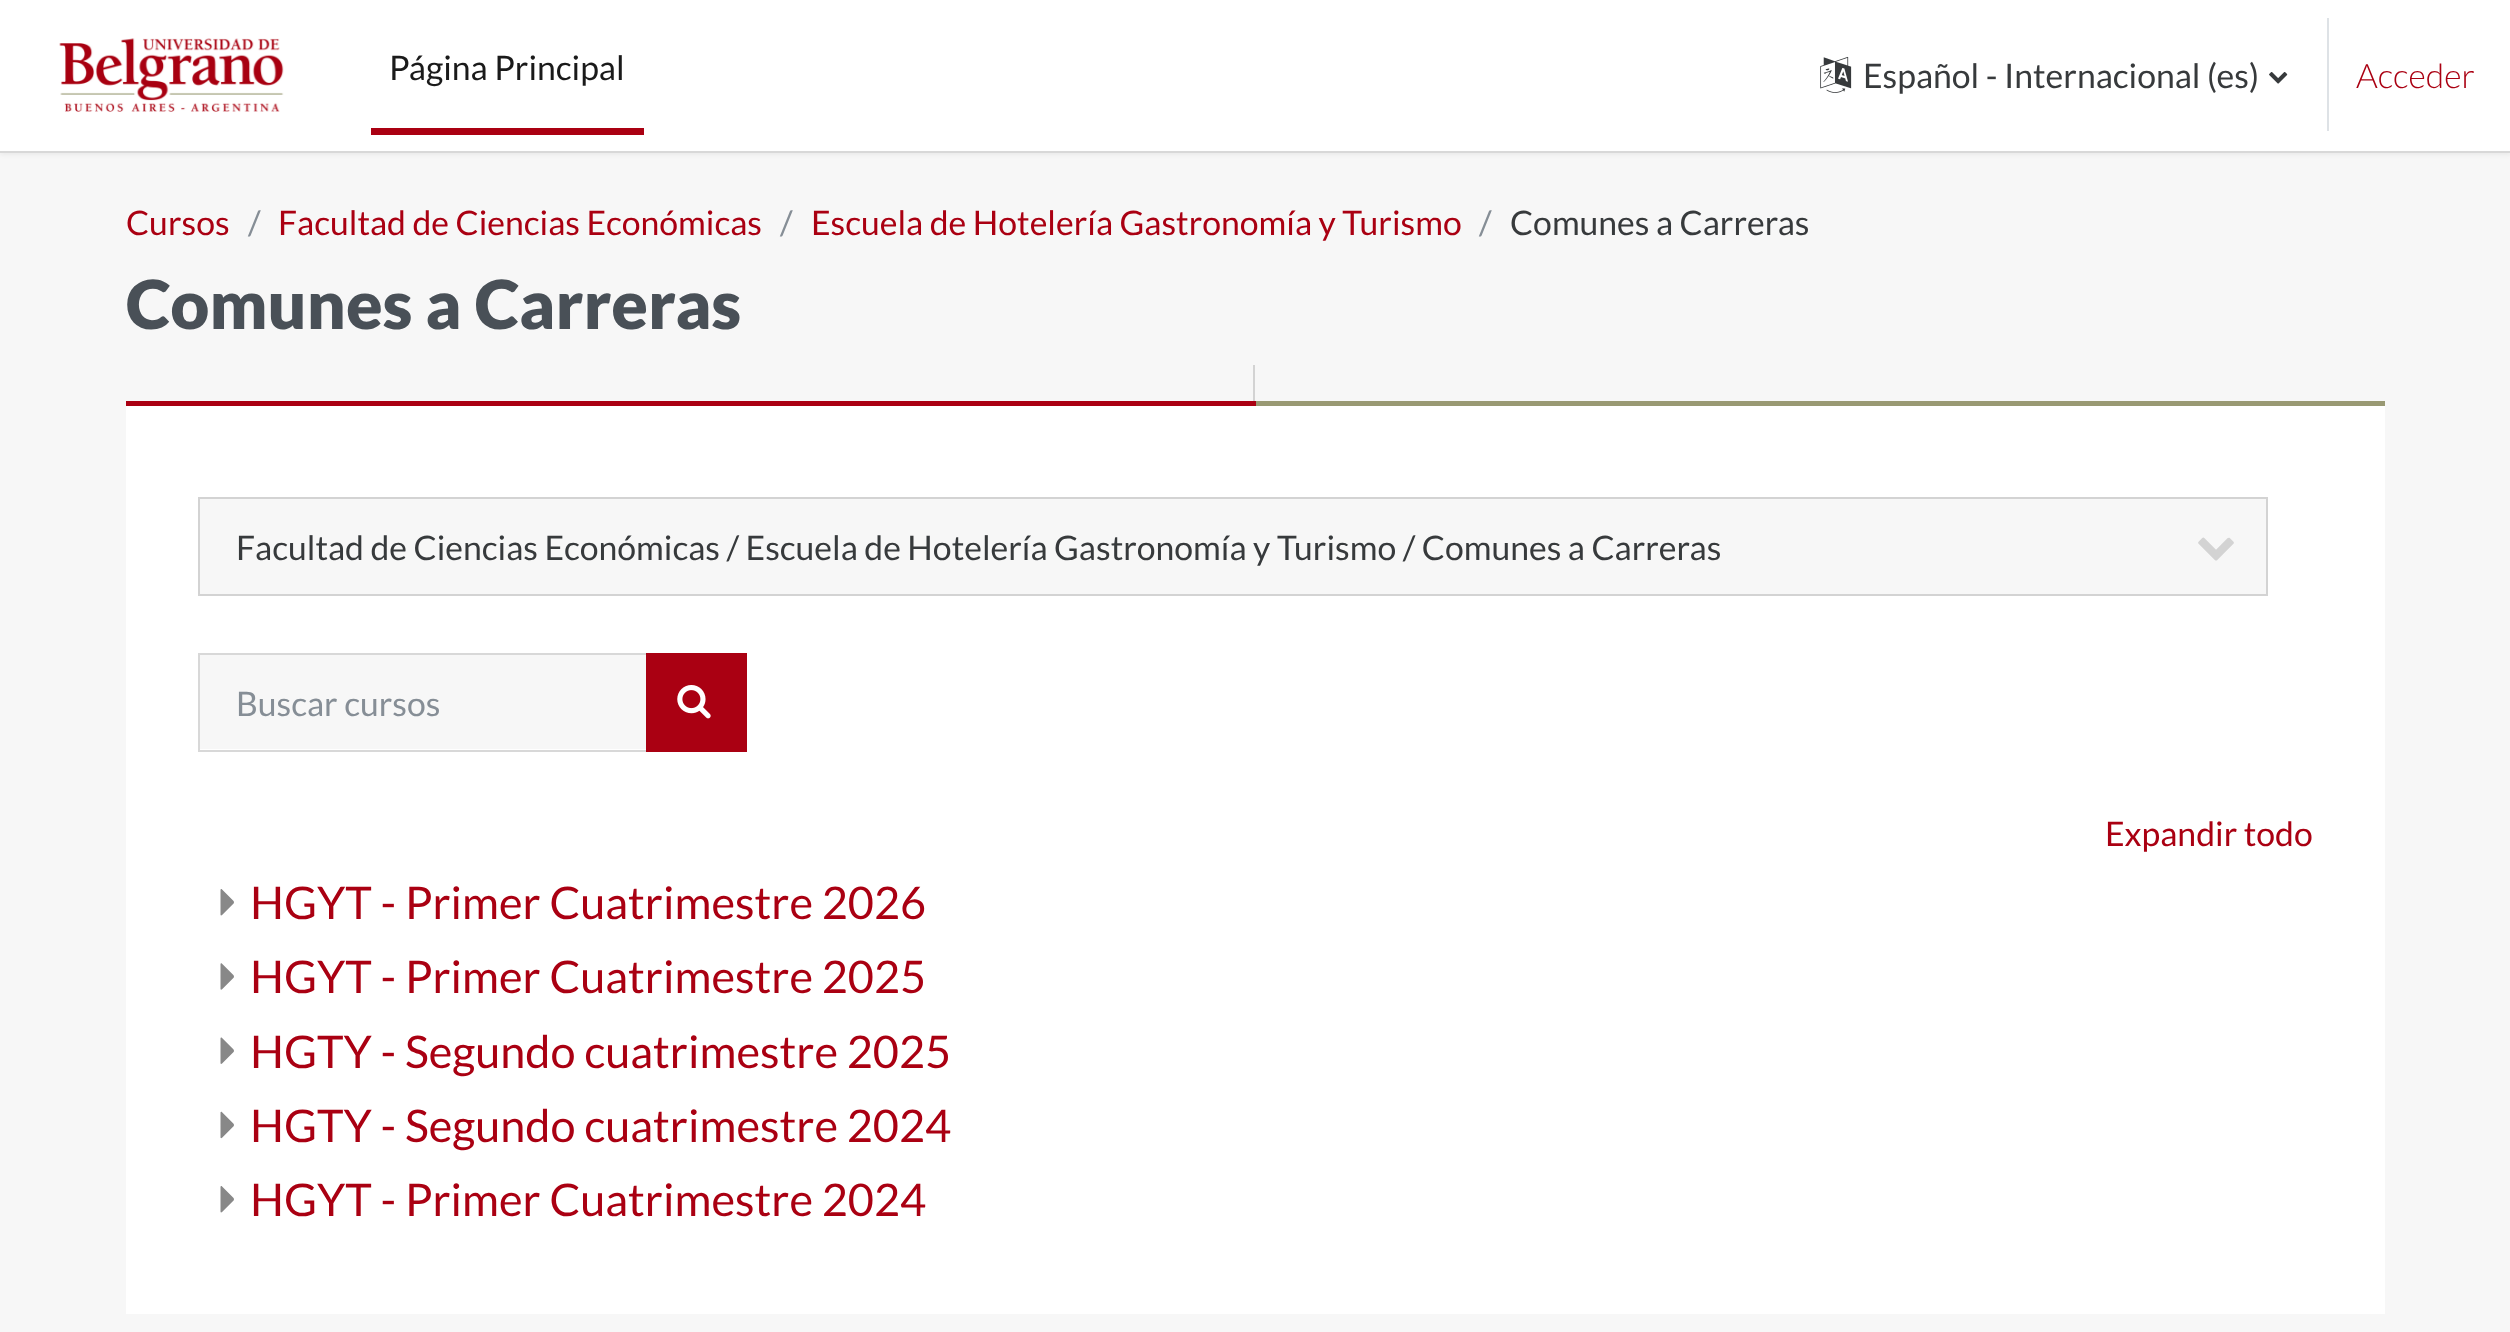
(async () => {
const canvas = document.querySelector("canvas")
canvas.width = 2510
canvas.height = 1332
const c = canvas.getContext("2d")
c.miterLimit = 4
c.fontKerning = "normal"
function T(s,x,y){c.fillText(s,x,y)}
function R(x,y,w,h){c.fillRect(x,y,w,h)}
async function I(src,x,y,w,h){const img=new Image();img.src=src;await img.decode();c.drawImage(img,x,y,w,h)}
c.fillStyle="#f7f7f7"
R(0,0,2510,1332)
c.fillStyle="#0000000d"
c.filter="blur(2px)"
c.beginPath()
c.rect(0,2,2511,153)
c.fill()
c.filter="none"
c.fillStyle="#fff"
R(0,0,2510,151)
c.fillStyle="#d8d8d8"
R(0,151,2510,2)
await I("1.png",59,38,225,74)
c.fillStyle="#aa0012"
R(371,128,273,7)
c.font="33.75px Lato"
c.fillStyle="#1a1a1a"
T("Página Principal",389,80)
await I("2.png",1820,56,32,37)
c.fillStyle="#373a3c"
T("Español - Internacional (es)",1863,88)
await I("3.png",2269,72,19,12)
c.fillStyle="#dee2e6"
R(2327,18,2,113)
c.font="300 33.75px Lato"
c.fillStyle="#aa0012"
T("Acceder",2356,88)
c.font="33.75px Lato"
T("Cursos",126,235)
c.fillStyle="#868e96"
T("/",248,235)
c.fillStyle="#aa0012"
T("Facultad de Ciencias Económicas",278,235)
c.fillStyle="#868e96"
T("/",780,235)
c.fillStyle="#aa0012"
T("Escuela de Hotelería Gastronomía y Turismo",811,235)
c.fillStyle="#868e96"
T("/",1479,235)
c.fillStyle="#373a3c"
T("Comunes a Carreras",1510,235)
c.font="900 67.5px Lato"
c.fillStyle="#495057"
T("Comunes a Carreras",126,329)
c.fillStyle="#d3d3d3"
R(1253,365,2,36)
c.fillStyle="#aa0012"
R(126,401,1130,5)
c.fillStyle="#999973"
R(1256,401,1129,5)
c.fillStyle="#fff"
R(126,406,2259,908)
c.fillStyle="#f7f7f7"
R(200,499,2066,95)
await I("4.png",2198,537,36,24)
c.strokeStyle="#d3d3d3"
c.lineWidth=2
c.strokeRect(199,498,2068,97)
c.font="33.75px Lato"
c.fillStyle="#373a3c"
T("Facultad de Ciencias Económicas / Escuela de Hotelería Gastronomía y Turismo / Comunes a Carreras",236,560)
c.fillStyle="#f7f7f7"
R(200,655,446,94)
c.strokeStyle="#d8d8d8"
c.strokeRect(199,654,448,97)
c.fillStyle="#868e96"
T("Buscar cursos",236,716)
c.fillStyle="#aa0012"
R(646,653,101,99)
await I("5.png",677,685,34,34)
T("Expandir todo",2105,846)
await I("6.png",220,889,14,27)
c.font="45px Lato"
T("HGYT - Primer Cuatrimestre 2026",250,919)
await I("7.png",220,963,14,27)
T("HGYT - Primer Cuatrimestre 2025",250,993)
await I("8.png",220,1037,14,27)
T("HGTY - Segundo cuatrimestre 2025",250,1068)
await I("9.png",220,1111,14,28)
T("HGTY - Segundo cuatrimestre 2024",250,1142)
await I("6.png",220,1186,14,27)
T("HGYT - Primer Cuatrimestre 2024",250,1216)
})()
